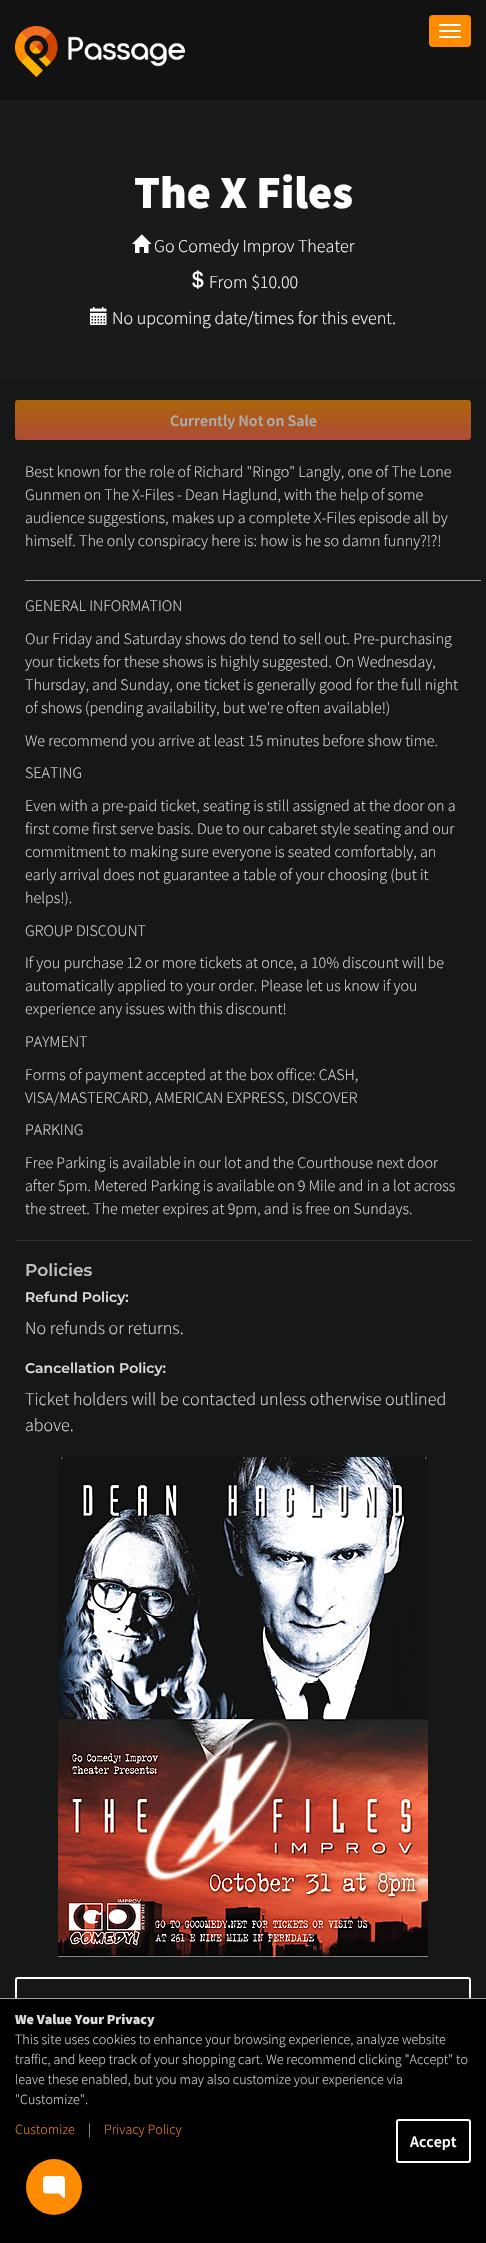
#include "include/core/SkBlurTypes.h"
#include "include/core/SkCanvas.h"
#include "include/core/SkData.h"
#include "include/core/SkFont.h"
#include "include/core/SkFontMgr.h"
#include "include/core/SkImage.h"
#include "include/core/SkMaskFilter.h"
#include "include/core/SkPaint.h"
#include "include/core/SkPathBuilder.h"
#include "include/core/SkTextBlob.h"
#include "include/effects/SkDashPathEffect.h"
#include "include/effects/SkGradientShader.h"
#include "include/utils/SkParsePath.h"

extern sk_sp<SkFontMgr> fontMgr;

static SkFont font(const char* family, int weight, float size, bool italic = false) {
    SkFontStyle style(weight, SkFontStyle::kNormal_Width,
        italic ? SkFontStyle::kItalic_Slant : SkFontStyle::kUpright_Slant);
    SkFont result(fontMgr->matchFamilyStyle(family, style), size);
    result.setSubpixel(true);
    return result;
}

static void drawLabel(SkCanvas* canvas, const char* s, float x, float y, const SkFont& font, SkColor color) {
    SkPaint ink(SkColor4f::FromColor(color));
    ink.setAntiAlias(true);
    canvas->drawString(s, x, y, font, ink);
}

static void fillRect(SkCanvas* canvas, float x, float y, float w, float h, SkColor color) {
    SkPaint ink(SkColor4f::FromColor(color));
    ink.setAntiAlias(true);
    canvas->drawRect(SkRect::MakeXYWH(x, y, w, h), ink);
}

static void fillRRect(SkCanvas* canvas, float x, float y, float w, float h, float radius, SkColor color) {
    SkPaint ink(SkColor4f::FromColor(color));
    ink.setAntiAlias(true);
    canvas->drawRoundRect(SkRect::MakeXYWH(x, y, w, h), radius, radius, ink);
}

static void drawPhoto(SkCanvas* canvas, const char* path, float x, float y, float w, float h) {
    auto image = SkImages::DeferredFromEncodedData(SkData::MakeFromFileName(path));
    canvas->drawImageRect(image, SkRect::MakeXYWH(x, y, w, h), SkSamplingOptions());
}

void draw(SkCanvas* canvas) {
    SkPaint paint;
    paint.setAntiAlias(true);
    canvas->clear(0xFF181A1B);
    fillRect(canvas, 0, 0, 486, 100, 0xFF121212);
    drawPhoto(canvas, "assets/img1.png", 15, 26, 170, 51);
    fillRRect(canvas, 429, 15, 42, 32, 4, 0xFFFE8B00);
    fillRRect(canvas, 439, 24, 22, 2, 1, 0xFFFFFFFF);
    fillRRect(canvas, 439, 30, 22, 2, 1, 0xFFFFFFFF);
    fillRRect(canvas, 439, 36, 22, 2, 1, 0xFFFFFFFF);
    SkFont font1 = font("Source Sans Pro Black", 900, 46);
    drawLabel(canvas, "The X Files", 134, 208, font1, 0xFFFFFFFF);
    drawPhoto(canvas, "assets/img2.png", 132, 234, 20, 19);
    SkFont font2 = font("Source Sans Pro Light", 300, 18);
    drawLabel(canvas, "Go Comedy Improv Theater", 154, 252, font2, 0xFFFFFFFF);
    drawPhoto(canvas, "assets/img3.png", 192, 270, 12, 19);
    drawLabel(canvas, "From $10.00", 209, 288, font2, 0xFFFFFFFF);
    drawPhoto(canvas, "assets/img4.png", 90, 307, 17, 18);
    drawLabel(canvas, "No upcoming date/times for this event.", 112, 324, font2, 0xFFFFFFFF);
    fillRect(canvas, 0, 380, 486, 1618, 0xFF161717);
    {
        const SkColor colors[] = {0xFFAD6508, 0xFFAD4C38};
        const float stops[] = {0, 1};
        const SkPoint ends[] = {{243, 400}, {243, 440}};
        paint.setShader(SkGradientShader::MakeLinear(ends, colors, stops, 2, SkTileMode::kClamp));
        paint.setAlpha(255);
    }
    canvas->drawRoundRect(SkRect::MakeXYWH(15, 400, 456, 40), 3, 3, paint);
    SkFont font3 = font("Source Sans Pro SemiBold", 600, 16);
    drawLabel(canvas, "Currently Not on Sale", 170, 426, font3, 0xFFADAEAE);
    SkFont font4 = font("Source Sans Pro Light", 300, 16);
    drawLabel(canvas, "Best known for the role of Richard \"Ringo\" Langly, one of The Lone", 25, 477, font4, 0xFFDDDDDD);
    drawLabel(canvas, "Gunmen on The X-Files - Dean Haglund, with the help of some", 25, 500, font4, 0xFFDDDDDD);
    drawLabel(canvas, "audience suggestions, makes up a complete X-Files episode all by", 25, 523, font4, 0xFFDDDDDD);
    drawLabel(canvas, "himself. The only conspiracy here is: how is he so damn funny?!?!", 25, 546, font4, 0xFFDDDDDD);
    drawLabel(canvas, "_________________________________________________________", 25, 579, font4, 0xFFDDDDDD);
    drawLabel(canvas, "GENERAL INFORMATION", 25, 611, font4, 0xFFDDDDDD);
    drawLabel(canvas, "Our Friday and Saturday shows do tend to sell out. Pre-purchasing", 25, 644, font4, 0xFFDDDDDD);
    drawLabel(canvas, "your tickets for these shows is highly suggested. On Wednesday,", 25, 667, font4, 0xFFDDDDDD);
    drawLabel(canvas, "Thursday, and Sunday, one ticket is generally good for the full night", 25, 690, font4, 0xFFDDDDDD);
    drawLabel(canvas, "of shows (pending availability, but we're often available!)", 25, 713, font4, 0xFFDDDDDD);
    drawLabel(canvas, "We recommend you arrive at least 15 minutes before show time.", 25, 746, font4, 0xFFDDDDDD);
    drawLabel(canvas, "SEATING", 25, 778, font4, 0xFFDDDDDD);
    drawLabel(canvas, "Even with a pre-paid ticket, seating is still assigned at the door on a", 25, 811, font4, 0xFFDDDDDD);
    drawLabel(canvas, "first come first serve basis. Due to our cabaret style seating and our", 25, 834, font4, 0xFFDDDDDD);
    drawLabel(canvas, "commitment to making sure everyone is seated comfortably, an", 25, 857, font4, 0xFFDDDDDD);
    drawLabel(canvas, "early arrival does not guarantee a table of your choosing (but it", 25, 880, font4, 0xFFDDDDDD);
    drawLabel(canvas, "helps!).", 25, 903, font4, 0xFFDDDDDD);
    drawLabel(canvas, "GROUP DISCOUNT", 25, 936, font4, 0xFFDDDDDD);
    drawLabel(canvas, "If you purchase 12 or more tickets at once, a 10% discount will be", 25, 968, font4, 0xFFDDDDDD);
    drawLabel(canvas, "automatically applied to your order. Please let us know if you", 25, 991, font4, 0xFFDDDDDD);
    drawLabel(canvas, "experience any issues with this discount!", 25, 1014, font4, 0xFFDDDDDD);
    drawLabel(canvas, "PAYMENT", 25, 1047, font4, 0xFFDDDDDD);
    drawLabel(canvas, "Forms of payment accepted at the box office: CASH,", 25, 1080, font4, 0xFFDDDDDD);
    drawLabel(canvas, "VISA/MASTERCARD, AMERICAN EXPRESS, DISCOVER", 25, 1103, font4, 0xFFDDDDDD);
    drawLabel(canvas, "PARKING", 25, 1135, font4, 0xFFDDDDDD);
    drawLabel(canvas, "Free Parking is available in our lot and the Courthouse next door", 25, 1168, font4, 0xFFDDDDDD);
    drawLabel(canvas, "after 5pm. Metered Parking is available on 9 Mile and in a lot across", 25, 1191, font4, 0xFFDDDDDD);
    drawLabel(canvas, "the street. The meter expires at 9pm, and is free on Sundays.", 25, 1214, font4, 0xFFDDDDDD);
    fillRect(canvas, 15, 1240, 456, 1, 0xFF333333);
    SkFont font5 = font("Montserrat", 600, 17);
    drawLabel(canvas, "Policies", 25, 1276, font5, 0xFFBFBFBF);
    SkFont font6 = font("Montserrat", 600, 14);
    drawLabel(canvas, "Refund Policy:", 25, 1302, font6, 0xFFDDDDDD);
    drawLabel(canvas, "No refunds or returns.", 25, 1334, font2, 0xFFDDDDDD);
    drawLabel(canvas, "Cancellation Policy:", 25, 1373, font6, 0xFFDDDDDD);
    drawLabel(canvas, "Ticket holders will be contacted unless otherwise outlined", 25, 1405, font2, 0xFFDDDDDD);
    drawLabel(canvas, "above.", 25, 1431, font2, 0xFFDDDDDD);
    drawPhoto(canvas, "assets/img5.png", 58, 1457, 370, 500);
    paint.setStroke(true);
    paint.setStrokeWidth(2);
    paint.setShader(nullptr);
    paint.setColor(0xFFFFFFFF);
    canvas->drawRoundRect(SkRect::MakeXYWH(16, 1978, 454, 42), 2, 2, paint);
    paint.setStroke(false);
    paint.setColor(0x33000000);
    paint.setMaskFilter(SkMaskFilter::MakeBlur(kNormal_SkBlurStyle, 4));
    canvas->drawRect(SkRect::MakeXYWH(0, 1998, 486, 245), paint);
    paint.setMaskFilter(nullptr);
    fillRect(canvas, 0, 1999, 486, 244, 0xFF000000);
    fillRect(canvas, 0, 1998, 486, 1, 0xFF9CA3AF);
    SkFont font7 = font("Source Sans Pro Black", 900, 14);
    drawLabel(canvas, "We Value Your Privacy", 15, 2024, font7, 0xFFDDDDDD);
    SkFont font8 = font("Source Sans Pro Light", 300, 14);
    drawLabel(canvas, "This site uses cookies to enhance your browsing experience, analyze website", 15, 2044, font8, 0xFFDDDDDD);
    drawLabel(canvas, "traffic, and keep track of your shopping cart. We recommend clicking \"Accept\" to", 15, 2064, font8, 0xFFDDDDDD);
    drawLabel(canvas, "leave these enabled, but you may also customize your experience via", 15, 2084, font8, 0xFFDDDDDD);
    drawLabel(canvas, "\"Customize\".", 15, 2104, font8, 0xFFDDDDDD);
    drawLabel(canvas, "Customize", 15, 2134, font8, 0xFFFE8B00);
    drawLabel(canvas, "|", 88, 2134, font8, 0xFFDDDDDD);
    drawLabel(canvas, "Privacy Policy", 104, 2134, font8, 0xFFFE8B00);
    paint.setStroke(true);
    paint.setColor(0xFFFFFFFF);
    canvas->drawRoundRect(SkRect::MakeXYWH(397, 2120, 73, 42), 2, 2, paint);
    drawLabel(canvas, "Accept", 410, 2147, font3, 0xFFFFFFFF);
    drawPhoto(canvas, "assets/img6.png", 26, 2159, 56, 56);
}
